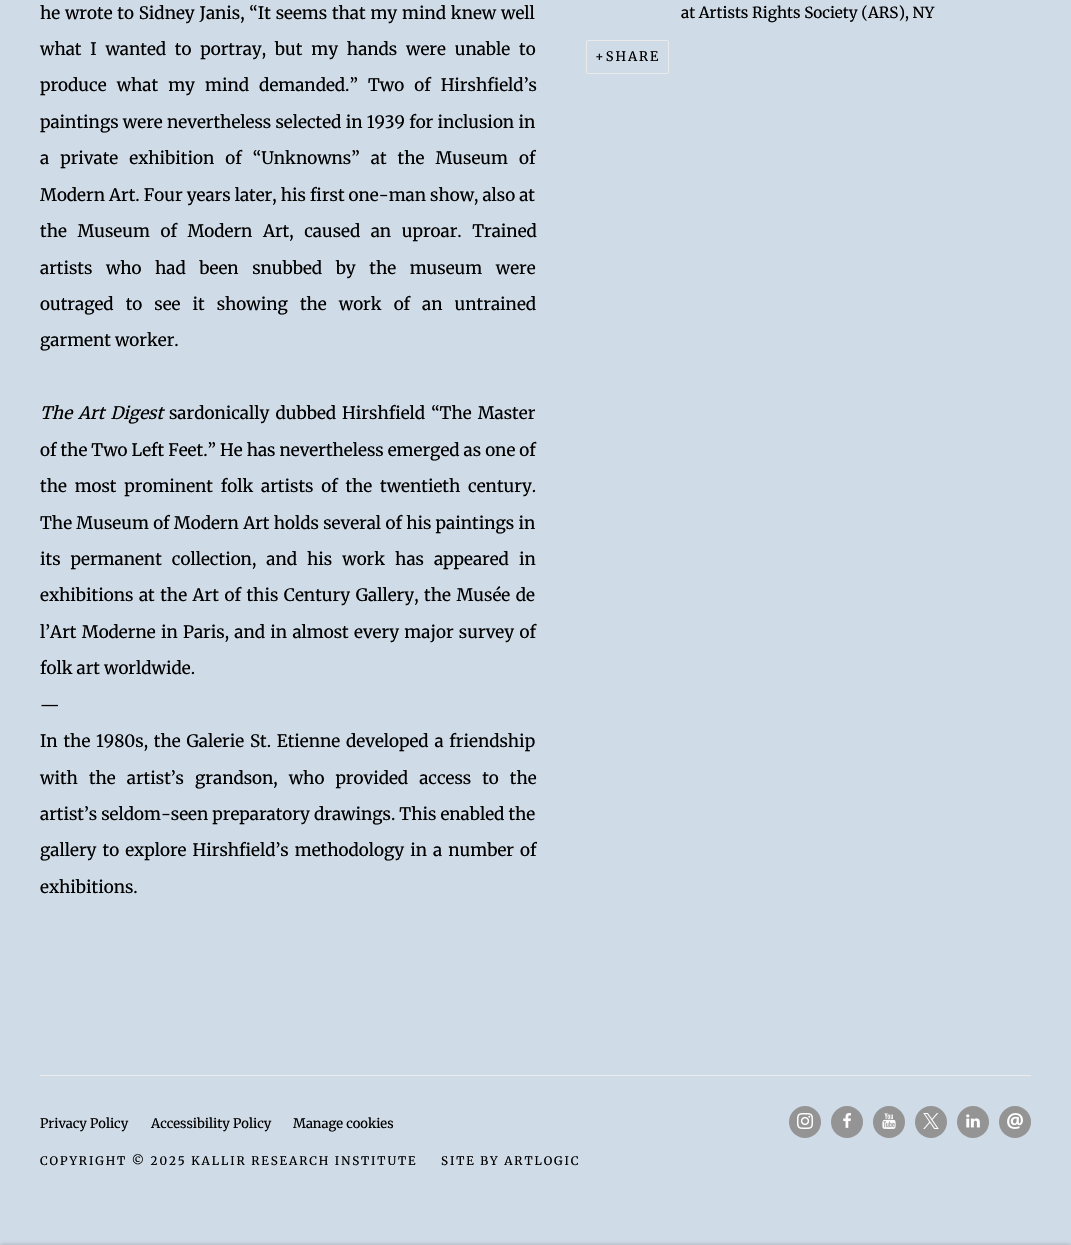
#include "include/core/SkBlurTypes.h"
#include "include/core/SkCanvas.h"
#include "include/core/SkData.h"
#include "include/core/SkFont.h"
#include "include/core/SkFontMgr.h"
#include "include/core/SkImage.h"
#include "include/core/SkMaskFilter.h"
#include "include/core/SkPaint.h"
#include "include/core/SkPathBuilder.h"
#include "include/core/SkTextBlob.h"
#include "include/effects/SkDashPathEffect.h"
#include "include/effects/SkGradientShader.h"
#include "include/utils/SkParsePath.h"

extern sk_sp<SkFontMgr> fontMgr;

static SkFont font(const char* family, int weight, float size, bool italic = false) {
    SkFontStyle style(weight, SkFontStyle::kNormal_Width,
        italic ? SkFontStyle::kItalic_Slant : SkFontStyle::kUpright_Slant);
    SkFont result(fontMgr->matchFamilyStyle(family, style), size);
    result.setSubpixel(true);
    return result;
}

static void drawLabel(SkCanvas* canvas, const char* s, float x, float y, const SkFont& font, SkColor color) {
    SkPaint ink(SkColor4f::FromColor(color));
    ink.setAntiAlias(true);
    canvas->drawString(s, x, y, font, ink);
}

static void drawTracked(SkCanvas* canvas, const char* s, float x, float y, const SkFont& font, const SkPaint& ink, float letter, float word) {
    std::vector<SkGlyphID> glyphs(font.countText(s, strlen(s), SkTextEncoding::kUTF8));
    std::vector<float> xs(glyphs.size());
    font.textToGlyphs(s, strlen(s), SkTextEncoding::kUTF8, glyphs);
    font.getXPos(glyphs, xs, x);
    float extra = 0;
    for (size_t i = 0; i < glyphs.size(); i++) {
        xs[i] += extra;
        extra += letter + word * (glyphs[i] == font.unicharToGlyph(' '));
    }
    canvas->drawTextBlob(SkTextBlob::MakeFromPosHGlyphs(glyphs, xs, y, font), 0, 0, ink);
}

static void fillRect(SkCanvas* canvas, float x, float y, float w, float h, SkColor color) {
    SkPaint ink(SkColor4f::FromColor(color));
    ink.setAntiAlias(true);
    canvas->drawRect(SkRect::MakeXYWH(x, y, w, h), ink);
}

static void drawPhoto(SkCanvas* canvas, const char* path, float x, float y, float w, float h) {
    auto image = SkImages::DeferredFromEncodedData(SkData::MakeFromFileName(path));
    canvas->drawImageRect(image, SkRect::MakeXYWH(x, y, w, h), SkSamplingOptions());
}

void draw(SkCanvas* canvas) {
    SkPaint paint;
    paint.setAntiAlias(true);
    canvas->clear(0xFFCFDBE7);
    SkFont font1 = font("Merriweather", 400, 17.05f);
    paint.setColor(0xFF000000);
    drawTracked(canvas, "he wrote to Sidney Janis, “It seems that my mind knew well", 40, 19, font1, paint, 0, 0.75f);
    drawTracked(canvas, "what I wanted to portray, but my hands were unable to", 40, 55, font1, paint, 0, 4.75f);
    drawTracked(canvas, "produce what my mind demanded.” Two of Hirshfield’s", 40, 91, font1, paint, 0, 6);
    drawTracked(canvas, "paintings were nevertheless selected in 1939 for inclusion in", 40, 128, font1, paint, 0, 0.25f);
    drawTracked(canvas, "a private exhibition of “Unknowns” at the Museum of", 40, 164, font1, paint, 0, 7);
    drawLabel(canvas, "Modern Art. Four years later, his first one-man show, also at", 40, 201, font1, 0xFF000000);
    drawTracked(canvas, "the Museum of Modern Art, caused an uproar. Trained", 40, 237, font1, paint, 0, 6.5f);
    drawTracked(canvas, "artists who had been snubbed by the museum were", 40, 274, font1, paint, 0, 9.5f);
    drawTracked(canvas, "outraged to see it showing the work of an untrained", 40, 310, font1, paint, 0, 8);
    drawLabel(canvas, "garment worker.", 40, 346, font1, 0xFF000000);
    SkFont font2 = font("Merriweather", 400, 17.05f, true);
    drawTracked(canvas, "The Art Digest", 40, 419, font2, paint, 0, 2);
    drawTracked(canvas, "sardonically dubbed Hirshfield “The Master", 169, 419, font1, paint, 0, 2);
    drawLabel(canvas, "of the Two Left Feet.” He has nevertheless emerged as one of", 40, 456, font1, 0xFF000000);
    drawTracked(canvas, "the most prominent folk artists of the twentieth century.", 40, 492, font1, paint, 0, 3.75f);
    drawTracked(canvas, "The Museum of Modern Art holds several of his paintings in", 40, 529, font1, paint, 0, 0.25f);
    drawTracked(canvas, "its permanent collection, and his work has appeared in", 40, 565, font1, paint, 0, 6);
    drawTracked(canvas, "exhibitions at the Art of this Century Gallery, the Musée de", 40, 601, font1, paint, 0, 1.5f);
    drawTracked(canvas, "l’Art Moderne in Paris, and in almost every major survey of", 40, 638, font1, paint, 0, 1.25f);
    drawLabel(canvas, "folk art worldwide.", 40, 674, font1, 0xFF000000);
    drawLabel(canvas, "—", 40, 711, font1, 0xFF000000);
    drawTracked(canvas, "In the 1980s, the Galerie St. Etienne developed a friendship", 40, 747, font1, paint, 0, 1.75f);
    drawTracked(canvas, "with the artist’s grandson, who provided access to the", 40, 784, font1, paint, 0, 7);
    drawLabel(canvas, "artist’s seldom-seen preparatory drawings. This enabled the", 40, 820, font1, 0xFF000000);
    drawTracked(canvas, "gallery to explore Hirshfield’s methodology in a number of", 40, 856, font1, paint, 0, 2);
    drawLabel(canvas, "exhibitions.", 40, 893, font1, 0xFF000000);
    SkFont font3 = font("Merriweather", 400, 15.3f);
    drawLabel(canvas, "at Artists Rights Society (ARS), NY", 681, 18, font3, 0xFF000000);
    paint.setStroke(true);
    paint.setStrokeWidth(1);
    paint.setColor(0xFFEBEBEB);
    canvas->drawRoundRect(SkRect::MakeXYWH(586.5f, 40.5f, 82, 33), 1.5f, 1.5f, paint);
    SkFont font4 = font("Merriweather", 400, 13);
    paint.setStroke(false);
    paint.setColor(0xFF000000);
    drawTracked(canvas, "+SHARE", 595, 61, font4, paint, 2, 0);
    fillRect(canvas, 40, 1075, 991, 1, 0xFFEBEBEB);
    drawLabel(canvas, "Privacy Policy", 40, 1128, font4, 0xFF000000);
    drawLabel(canvas, "Accessibility Policy", 151, 1128, font4, 0xFF000000);
    drawLabel(canvas, "Manage cookies", 293, 1128, font4, 0xFF000000);
    SkFont font5 = font("Merriweather", 400, 11.75f);
    drawTracked(canvas, "COPYRIGHT © 2025 KALLIR RESEARCH INSTITUTE", 40, 1165, font5, paint, 1.9f, 0);
    drawTracked(canvas, "SITE BY ARTLOGIC", 441, 1165, font5, paint, 1.9f, 0);
    paint.setColor(0xFF949494);
    canvas->drawCircle(805, 1122, 16, paint);
    drawPhoto(canvas, "assets/img1.png", 797, 1113, 16, 16);
    canvas->drawCircle(847, 1122, 16, paint);
    drawPhoto(canvas, "assets/img2.png", 843, 1113, 8, 15);
    canvas->drawCircle(889, 1122, 16, paint);
    drawPhoto(canvas, "assets/img3.png", 882, 1113, 14, 16);
    canvas->drawCircle(931, 1122, 16, paint);
    drawPhoto(canvas, "assets/img4.png", 923, 1113, 16, 16);
    canvas->drawCircle(973, 1122, 16, paint);
    drawPhoto(canvas, "assets/img5.png", 966, 1114, 14, 14);
    canvas->drawCircle(1015, 1122, 16, paint);
    drawPhoto(canvas, "assets/img6.png", 1007, 1113, 16, 16);
    paint.setColor(0x3B000000);
    paint.setMaskFilter(SkMaskFilter::MakeBlur(kNormal_SkBlurStyle, 2.5f));
    canvas->drawRect(SkRect::MakeXYWH(0, 1245, 1071, 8), paint);
    paint.setMaskFilter(nullptr);
}
